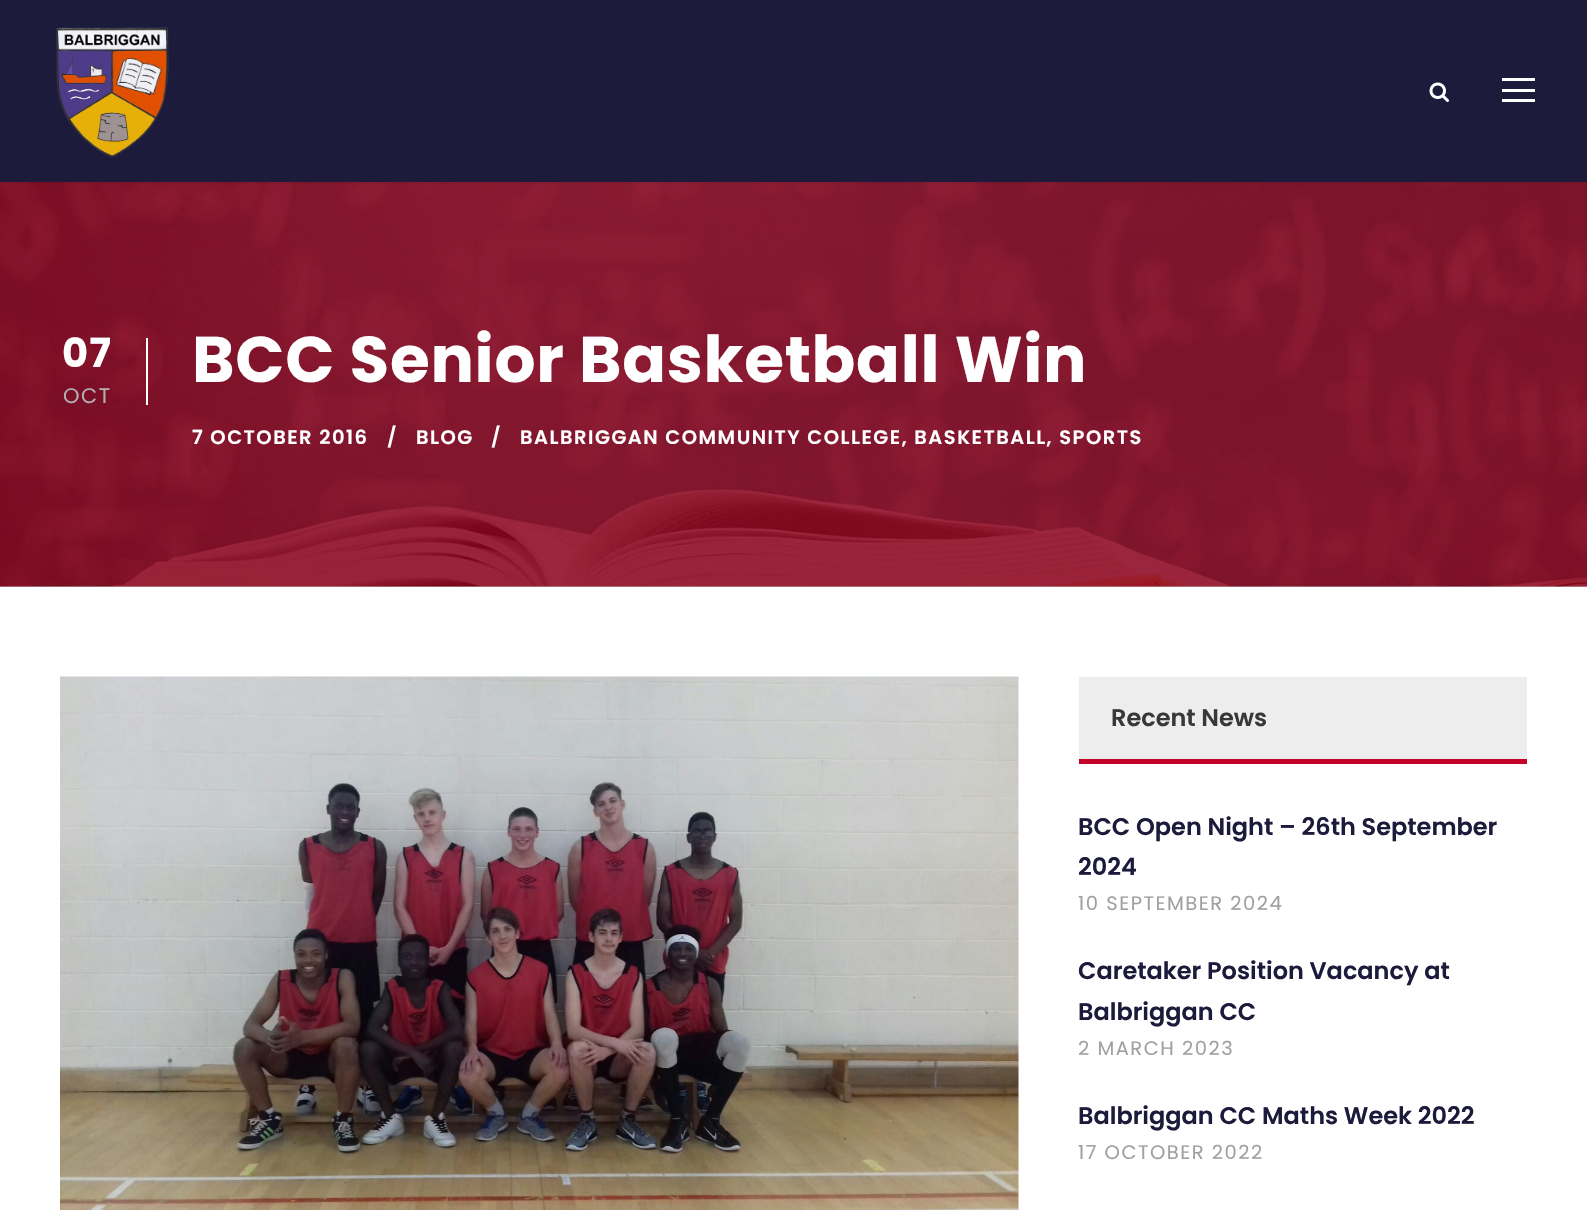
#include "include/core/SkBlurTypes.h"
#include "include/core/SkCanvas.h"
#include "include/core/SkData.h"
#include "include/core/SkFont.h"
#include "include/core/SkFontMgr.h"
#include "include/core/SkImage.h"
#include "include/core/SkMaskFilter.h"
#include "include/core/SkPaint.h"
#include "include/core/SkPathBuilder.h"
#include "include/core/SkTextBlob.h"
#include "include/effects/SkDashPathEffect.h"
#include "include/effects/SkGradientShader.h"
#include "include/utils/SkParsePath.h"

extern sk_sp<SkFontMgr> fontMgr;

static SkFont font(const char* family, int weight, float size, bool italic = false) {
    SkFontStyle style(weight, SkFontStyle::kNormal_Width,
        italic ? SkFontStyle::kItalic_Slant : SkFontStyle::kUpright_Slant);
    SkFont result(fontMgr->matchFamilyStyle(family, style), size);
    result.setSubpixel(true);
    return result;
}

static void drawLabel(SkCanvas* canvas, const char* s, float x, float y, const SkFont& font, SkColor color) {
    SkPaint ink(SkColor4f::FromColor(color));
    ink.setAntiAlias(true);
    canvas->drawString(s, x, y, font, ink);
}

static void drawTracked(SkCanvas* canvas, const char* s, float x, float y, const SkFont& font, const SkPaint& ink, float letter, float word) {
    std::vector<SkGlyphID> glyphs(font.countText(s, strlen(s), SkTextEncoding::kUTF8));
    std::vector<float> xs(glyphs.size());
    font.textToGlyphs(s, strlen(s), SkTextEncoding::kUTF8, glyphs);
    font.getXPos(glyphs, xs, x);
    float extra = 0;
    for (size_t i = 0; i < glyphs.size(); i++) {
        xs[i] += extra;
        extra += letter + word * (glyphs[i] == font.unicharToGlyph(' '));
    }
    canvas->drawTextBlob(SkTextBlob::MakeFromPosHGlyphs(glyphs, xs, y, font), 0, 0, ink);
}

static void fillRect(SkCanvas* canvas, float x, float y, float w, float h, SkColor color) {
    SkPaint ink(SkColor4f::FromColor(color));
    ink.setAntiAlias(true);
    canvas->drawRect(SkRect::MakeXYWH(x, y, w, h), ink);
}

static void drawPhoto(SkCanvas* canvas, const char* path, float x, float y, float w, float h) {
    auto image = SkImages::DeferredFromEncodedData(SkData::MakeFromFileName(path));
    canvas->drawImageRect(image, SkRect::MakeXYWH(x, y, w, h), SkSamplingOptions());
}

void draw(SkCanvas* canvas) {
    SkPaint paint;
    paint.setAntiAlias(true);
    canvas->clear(0xFFFFFFFF);
    fillRect(canvas, 0, 586, 1587, 1, 0xFFBFBFBF);
    drawPhoto(canvas, "assets/img3.png", 0, 182, 1587, 405);
    paint.setColor(0x1A000000);
    paint.setMaskFilter(SkMaskFilter::MakeBlur(kNormal_SkBlurStyle, 1.5f));
    canvas->drawRect(SkRect::MakeXYWH(0, 2, 1587, 181), paint);
    paint.setMaskFilter(nullptr);
    fillRect(canvas, 0, 0, 1587, 182, 0xFF1C1B3B);
    drawPhoto(canvas, "assets/img1.png", 56, 27, 113, 131);
    drawPhoto(canvas, "assets/img2.png", 1429, 82, 20, 20);
    fillRect(canvas, 1502, 78, 33, 3, 0xFFFFFFFF);
    fillRect(canvas, 1502, 89, 33, 3, 0xFFFFFFFF);
    fillRect(canvas, 1502, 99, 33, 3, 0xFFFFFFFF);
    fillRect(canvas, 146, 338, 2, 67, 0xFFFFFFFF);
    SkFont font1 = font("Poppins", 700, 40);
    paint.setColor(0xFFFFFFFF);
    drawTracked(canvas, "07", 62, 367, font1, paint, 1.5f, 0);
    SkFont font2 = font("Poppins", 400, 21);
    paint.setColor(0xFFB1B1B1);
    drawTracked(canvas, "OCT", 63, 403, font2, paint, 1.5f, 0);
    SkFont font3 = font("Poppins", 700, 64.5f);
    paint.setColor(0xFFFFFFFF);
    drawTracked(canvas, "BCC Senior Basketball Win", 192, 382, font3, paint, 0.75f, 0);
    SkFont font4 = font("Poppins", 600, 19.5f);
    drawTracked(canvas, "7 OCTOBER 2016", 192, 444, font4, paint, 1.5f, 0);
    drawTracked(canvas, "/", 387, 444, font4, paint, 1.5f, 0);
    drawTracked(canvas, "BLOG", 416, 444, font4, paint, 1.5f, 0);
    drawTracked(canvas, "/", 491, 444, font4, paint, 1.5f, 0);
    drawTracked(canvas, "BALBRIGGAN COMMUNITY COLLEGE, BASKETBALL, SPORTS", 520, 444, font4, paint, 1.5f, 0);
    drawPhoto(canvas, "assets/img4.png", 60, 676, 959, 534);
    fillRect(canvas, 1079, 677, 448, 82, 0xFFEDEDED);
    fillRect(canvas, 1079, 759, 448, 5, 0xFFC50227);
    SkFont font5 = font("Poppins", 600, 24);
    drawLabel(canvas, "Recent News", 1111, 726, font5, 0xFF383838);
    drawLabel(canvas, "BCC Open Night – 26th September", 1078, 835, font5, 0xFF1C1B3B);
    drawLabel(canvas, "2024", 1078, 875, font5, 0xFF1C1B3B);
    SkFont font6 = font("Poppins", 400, 19.5f);
    paint.setColor(0xFFA0A0A0);
    drawTracked(canvas, "10 SEPTEMBER 2024", 1078, 910, font6, paint, 1.5f, 0);
    drawLabel(canvas, "Caretaker Position Vacancy at", 1078, 979, font5, 0xFF1C1B3B);
    drawLabel(canvas, "Balbriggan CC", 1078, 1020, font5, 0xFF1C1B3B);
    drawTracked(canvas, "2 MARCH 2023", 1078, 1055, font6, paint, 1.5f, 0);
    drawLabel(canvas, "Balbriggan CC Maths Week 2022", 1078, 1124, font5, 0xFF1C1B3B);
    drawTracked(canvas, "17 OCTOBER 2022", 1078, 1159, font6, paint, 1.5f, 0);
}
